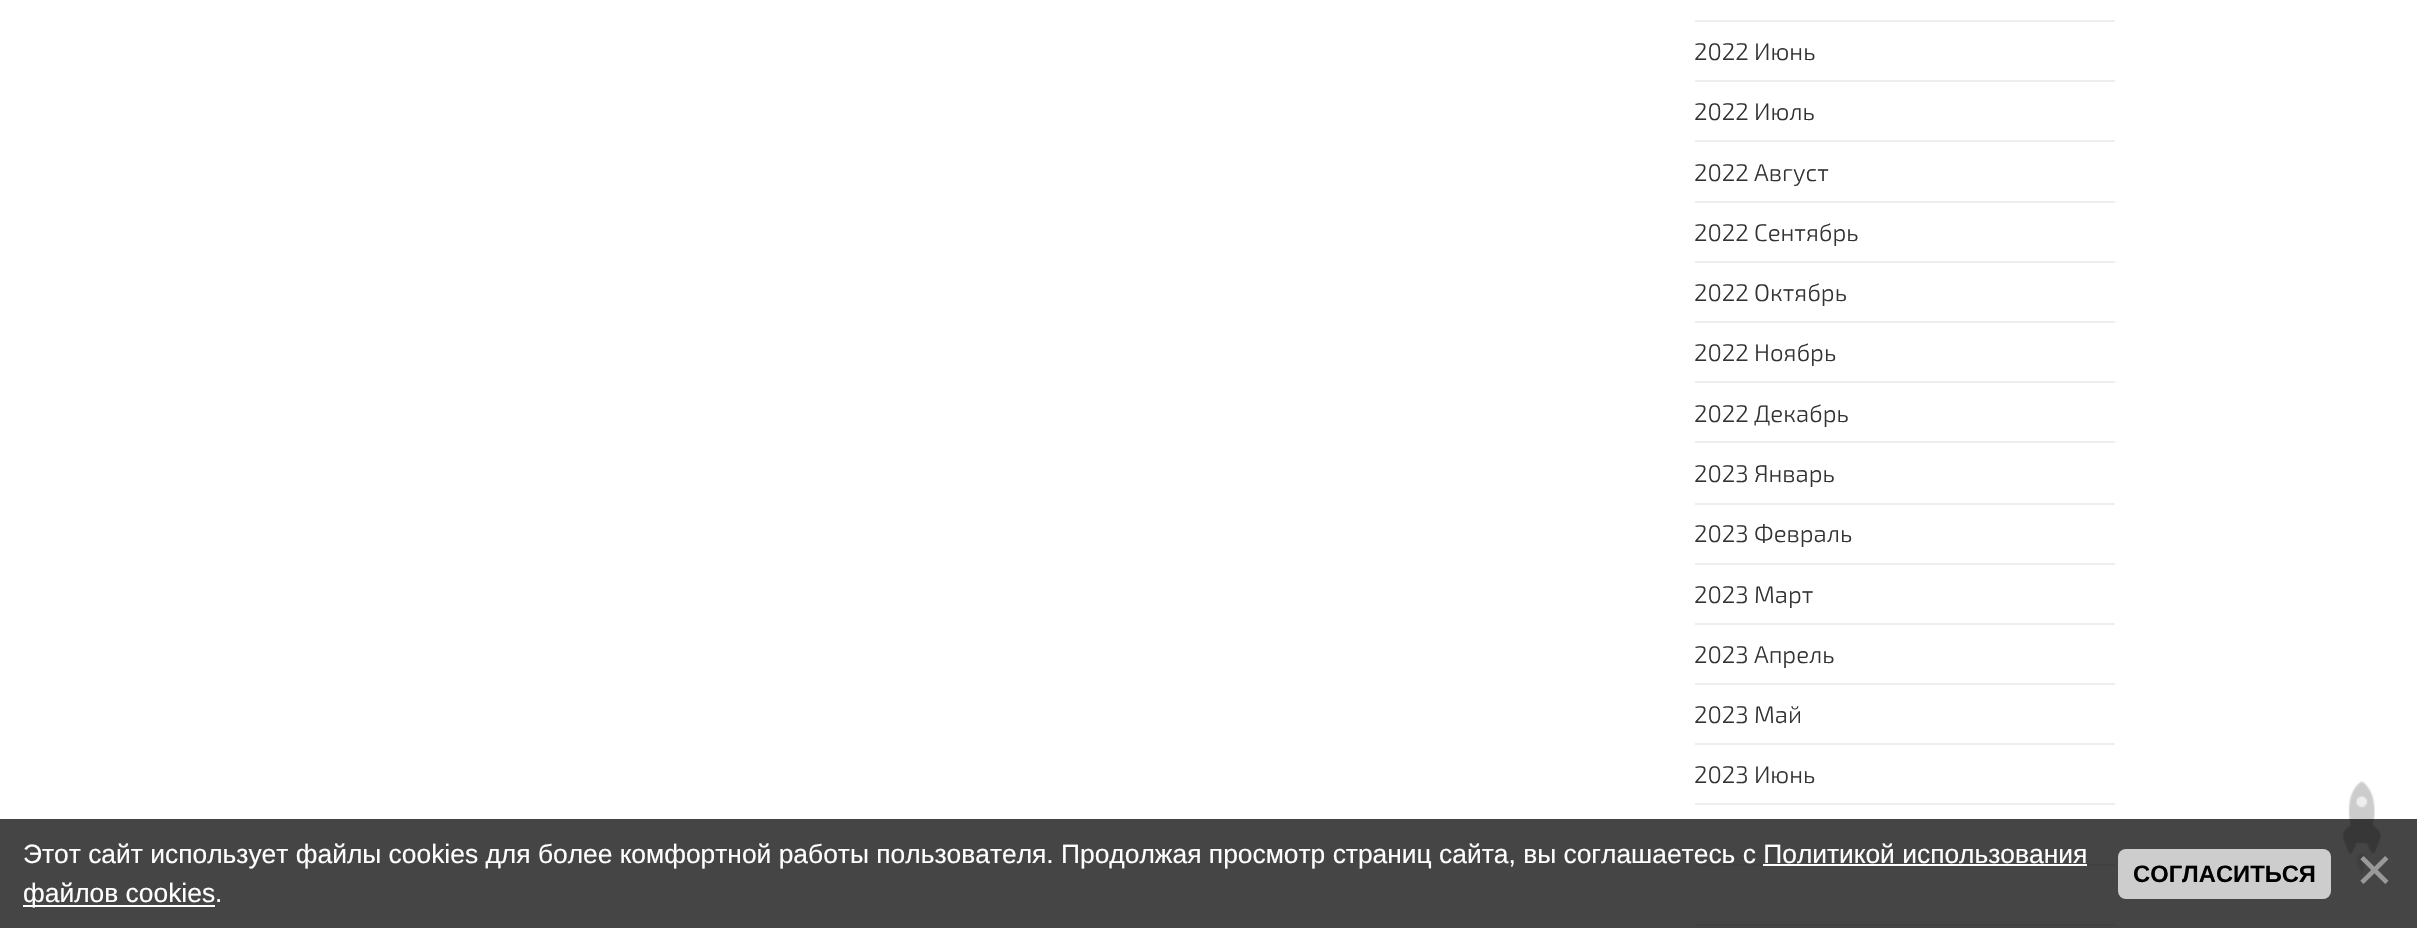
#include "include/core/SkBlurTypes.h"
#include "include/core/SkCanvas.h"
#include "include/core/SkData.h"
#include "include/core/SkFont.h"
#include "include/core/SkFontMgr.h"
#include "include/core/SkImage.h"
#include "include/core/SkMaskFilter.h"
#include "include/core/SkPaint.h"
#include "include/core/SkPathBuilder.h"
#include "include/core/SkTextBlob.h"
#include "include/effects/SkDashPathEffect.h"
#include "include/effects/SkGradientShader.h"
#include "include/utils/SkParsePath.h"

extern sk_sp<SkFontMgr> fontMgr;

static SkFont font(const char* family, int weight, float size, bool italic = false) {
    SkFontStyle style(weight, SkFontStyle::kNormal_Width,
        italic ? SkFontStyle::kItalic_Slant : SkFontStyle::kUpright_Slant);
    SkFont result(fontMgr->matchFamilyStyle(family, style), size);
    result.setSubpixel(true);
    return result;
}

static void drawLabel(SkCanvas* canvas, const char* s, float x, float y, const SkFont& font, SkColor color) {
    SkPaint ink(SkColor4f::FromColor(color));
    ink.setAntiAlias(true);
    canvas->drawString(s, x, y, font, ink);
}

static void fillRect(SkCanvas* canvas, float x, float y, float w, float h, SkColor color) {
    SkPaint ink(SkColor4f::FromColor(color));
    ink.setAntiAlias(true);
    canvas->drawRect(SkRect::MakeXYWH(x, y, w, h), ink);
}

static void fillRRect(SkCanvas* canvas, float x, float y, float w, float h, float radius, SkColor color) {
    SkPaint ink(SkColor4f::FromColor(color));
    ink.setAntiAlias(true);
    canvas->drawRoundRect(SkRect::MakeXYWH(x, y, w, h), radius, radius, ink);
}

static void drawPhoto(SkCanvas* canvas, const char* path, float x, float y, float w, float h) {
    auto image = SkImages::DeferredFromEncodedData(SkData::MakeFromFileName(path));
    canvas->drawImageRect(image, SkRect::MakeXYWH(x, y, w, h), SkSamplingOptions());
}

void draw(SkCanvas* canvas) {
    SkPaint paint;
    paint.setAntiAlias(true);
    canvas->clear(0xFFFFFFFF);
    fillRect(canvas, 1695, 20, 420, 2, 0xFFEEEEEE);
    fillRect(canvas, 1695, 80, 420, 2, 0xFFEEEEEE);
    SkFont font1 = font("Exo 2", 300, 24);
    drawLabel(canvas, "2022 Июнь", 1694, 60, font1, 0xFF333333);
    fillRect(canvas, 1695, 140, 420, 2, 0xFFEEEEEE);
    drawLabel(canvas, "2022 Июль", 1694, 120, font1, 0xFF333333);
    fillRect(canvas, 1695, 201, 420, 2, 0xFFEEEEEE);
    drawLabel(canvas, "2022 Август", 1694, 181, font1, 0xFF333333);
    fillRect(canvas, 1695, 261, 420, 2, 0xFFEEEEEE);
    drawLabel(canvas, "2022 Сентябрь", 1694, 241, font1, 0xFF333333);
    fillRect(canvas, 1695, 321, 420, 2, 0xFFEEEEEE);
    drawLabel(canvas, "2022 Октябрь", 1694, 301, font1, 0xFF333333);
    fillRect(canvas, 1695, 381, 420, 2, 0xFFEEEEEE);
    drawLabel(canvas, "2022 Ноябрь", 1694, 361, font1, 0xFF333333);
    fillRect(canvas, 1695, 441, 420, 2, 0xFFEEEEEE);
    drawLabel(canvas, "2022 Декабрь", 1694, 422, font1, 0xFF333333);
    fillRect(canvas, 1695, 503, 420, 2, 0xFFEEEEEE);
    drawLabel(canvas, "2023 Январь", 1694, 482, font1, 0xFF333333);
    fillRect(canvas, 1695, 563, 420, 2, 0xFFEEEEEE);
    drawLabel(canvas, "2023 Февраль", 1694, 542, font1, 0xFF333333);
    fillRect(canvas, 1695, 623, 420, 2, 0xFFEEEEEE);
    drawLabel(canvas, "2023 Март", 1694, 603, font1, 0xFF333333);
    fillRect(canvas, 1695, 683, 420, 2, 0xFFEEEEEE);
    drawLabel(canvas, "2023 Апрель", 1694, 663, font1, 0xFF333333);
    fillRect(canvas, 1695, 743, 420, 2, 0xFFEEEEEE);
    drawLabel(canvas, "2023 Май", 1694, 723, font1, 0xFF333333);
    fillRect(canvas, 1695, 803, 420, 2, 0xFFEEEEEE);
    drawLabel(canvas, "2023 Июнь", 1694, 783, font1, 0xFF333333);
    fillRect(canvas, 1695, 864, 420, 2, 0xFFEEEEEE);
    fillRect(canvas, 1695, 924, 420, 2, 0xFFEEEEEE);
    drawPhoto(canvas, "assets/img1.png", 2342, 781, 39, 73);
    drawPhoto(canvas, "assets/img2.png", 2356, 853, 12, 21);
    fillRect(canvas, 0, 819, 2417, 109, 0xBA000000);
    SkFont font2 = font("Liberation Sans", 400, 26.4f);
    drawLabel(canvas, "Этот сайт использует файлы cookies для более комфортной работы пользователя. Продолжая просмотр страниц сайта, вы соглашаетесь с Политикой использования", 23, 863, font2, 0xFFFFFFFF);
    fillRect(canvas, 23, 905, 192, 2, 0xFFFFFFFF);
    drawLabel(canvas, "файлов cookies.", 23, 902, font2, 0xFFFFFFFF);
    fillRect(canvas, 1763, 864, 324, 2, 0xFFFFFFFF);
    fillRRect(canvas, 2118, 849, 213, 50, 8, 0xFFCDCDCD);
    SkFont font3 = font("Liberation Sans", 700, 23.75f);
    drawLabel(canvas, "СОГЛАСИТЬСЯ", 2133, 882, font3, 0xFF000000);
    SkFont font4 = font("Liberation Sans", 400, 63);
    drawLabel(canvas, "×", 2356, 891, font4, 0xFF999999);
}
